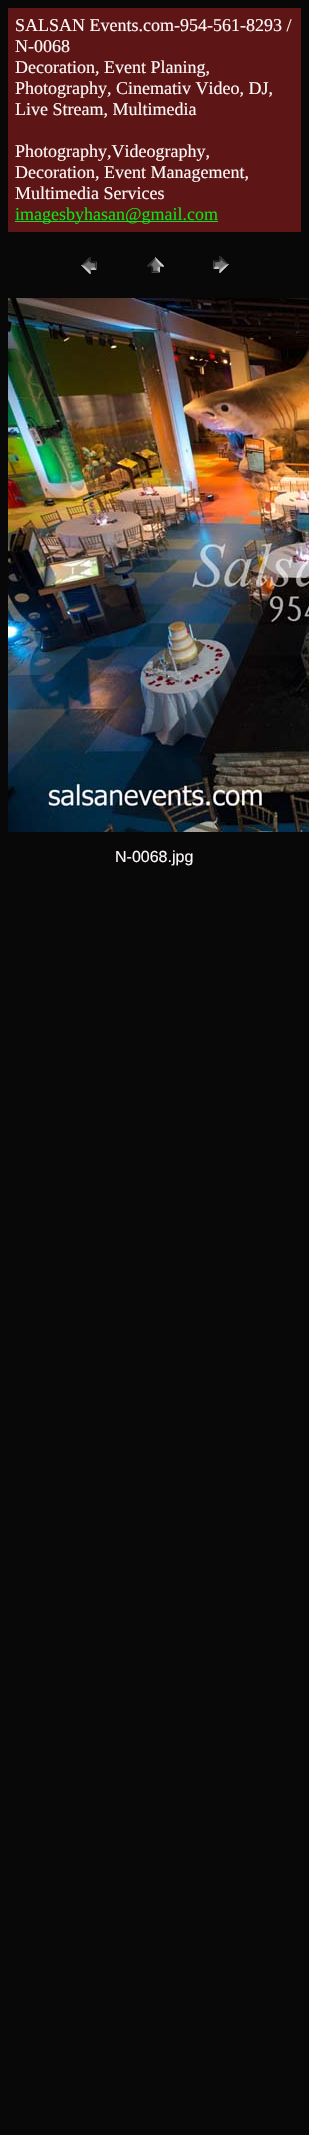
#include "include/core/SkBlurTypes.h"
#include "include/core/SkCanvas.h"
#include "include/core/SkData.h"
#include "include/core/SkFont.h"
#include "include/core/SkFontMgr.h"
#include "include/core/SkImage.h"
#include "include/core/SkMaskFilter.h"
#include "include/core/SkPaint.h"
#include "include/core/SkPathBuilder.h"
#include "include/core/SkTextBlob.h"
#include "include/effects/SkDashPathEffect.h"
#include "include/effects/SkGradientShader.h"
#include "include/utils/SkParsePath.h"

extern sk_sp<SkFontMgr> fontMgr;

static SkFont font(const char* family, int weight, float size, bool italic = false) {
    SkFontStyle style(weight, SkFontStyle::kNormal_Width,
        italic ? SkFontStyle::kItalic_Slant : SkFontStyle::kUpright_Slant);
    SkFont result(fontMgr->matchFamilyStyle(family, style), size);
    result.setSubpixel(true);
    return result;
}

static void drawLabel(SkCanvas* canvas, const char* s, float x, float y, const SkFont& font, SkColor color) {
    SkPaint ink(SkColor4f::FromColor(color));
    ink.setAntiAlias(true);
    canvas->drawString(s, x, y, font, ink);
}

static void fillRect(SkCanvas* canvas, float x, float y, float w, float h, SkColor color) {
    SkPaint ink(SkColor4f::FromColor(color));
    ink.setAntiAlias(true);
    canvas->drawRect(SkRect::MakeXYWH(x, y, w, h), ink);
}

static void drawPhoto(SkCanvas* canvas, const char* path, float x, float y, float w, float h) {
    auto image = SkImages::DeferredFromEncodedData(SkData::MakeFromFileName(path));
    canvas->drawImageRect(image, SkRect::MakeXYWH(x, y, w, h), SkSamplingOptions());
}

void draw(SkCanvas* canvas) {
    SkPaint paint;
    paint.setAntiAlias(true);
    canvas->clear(0xFF080808);
    fillRect(canvas, 8, 8, 293, 224, 0xFF5E1515);
    SkFont font1 = font("Liberation Serif", 400, 18);
    drawLabel(canvas, "SALSAN Events.com-954-561-8293 /", 15, 31, font1, 0xFFFEF8F8);
    drawLabel(canvas, "N-0068", 15, 52, font1, 0xFFFEF8F8);
    drawLabel(canvas, "Decoration, Event Planing,", 15, 73, font1, 0xFFFEF8F8);
    drawLabel(canvas, "Photography, Cinemativ Video, DJ,", 15, 94, font1, 0xFFFEF8F8);
    drawLabel(canvas, "Live Stream, Multimedia", 15, 115, font1, 0xFFFEF8F8);
    drawLabel(canvas, "Photography,Videography,", 15, 157, font1, 0xFFFEF8F8);
    drawLabel(canvas, "Decoration, Event Management,", 15, 178, font1, 0xFFFEF8F8);
    drawLabel(canvas, "Multimedia Services", 15, 199, font1, 0xFFFEF8F8);
    fillRect(canvas, 15, 221, 203, 1, 0xFF0AE419);
    drawLabel(canvas, "imagesbyhasan@gmail.com", 15, 220, font1, 0xFF0AE419);
    drawPhoto(canvas, "assets/img1.png", 81, 257, 16, 17);
    drawPhoto(canvas, "assets/img2.png", 147, 257, 17, 16);
    drawPhoto(canvas, "assets/img3.png", 213, 256, 16, 17);
    drawPhoto(canvas, "assets/img4.png", 8, 298, 301, 534);
    SkFont font2 = font("Liberation Sans", 400, 16);
    drawLabel(canvas, "N-0068.jpg", 115, 862, font2, 0xFFFEF8F8);
}
